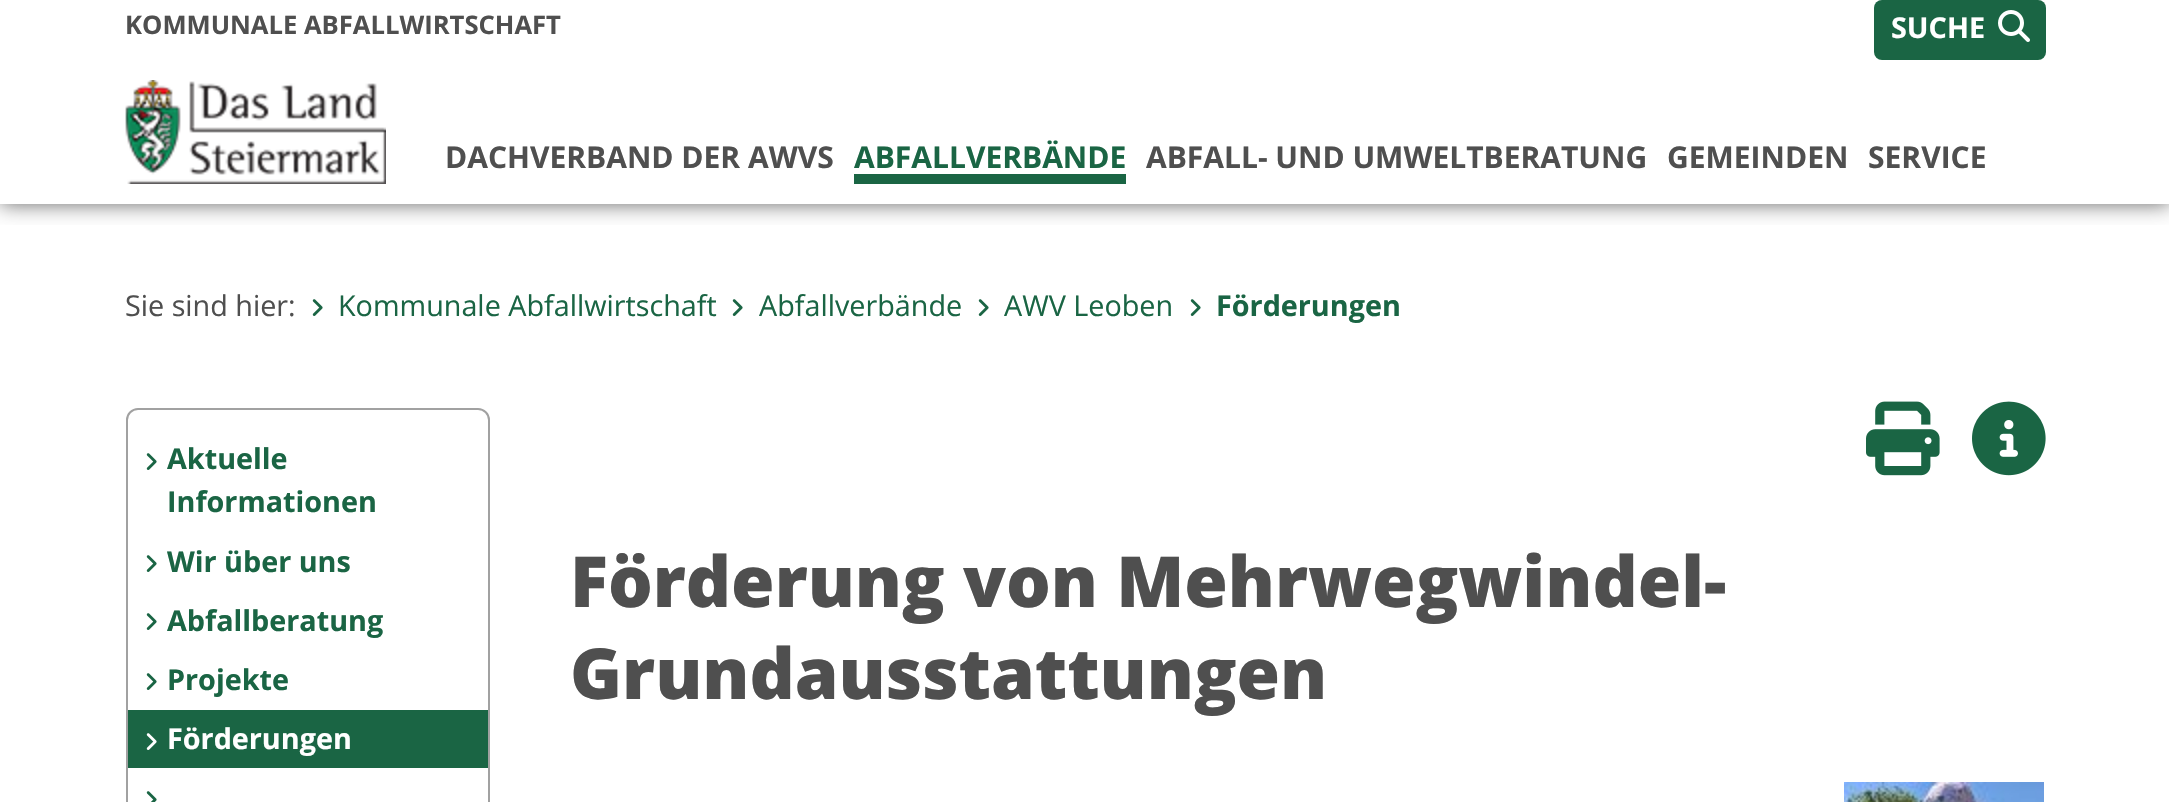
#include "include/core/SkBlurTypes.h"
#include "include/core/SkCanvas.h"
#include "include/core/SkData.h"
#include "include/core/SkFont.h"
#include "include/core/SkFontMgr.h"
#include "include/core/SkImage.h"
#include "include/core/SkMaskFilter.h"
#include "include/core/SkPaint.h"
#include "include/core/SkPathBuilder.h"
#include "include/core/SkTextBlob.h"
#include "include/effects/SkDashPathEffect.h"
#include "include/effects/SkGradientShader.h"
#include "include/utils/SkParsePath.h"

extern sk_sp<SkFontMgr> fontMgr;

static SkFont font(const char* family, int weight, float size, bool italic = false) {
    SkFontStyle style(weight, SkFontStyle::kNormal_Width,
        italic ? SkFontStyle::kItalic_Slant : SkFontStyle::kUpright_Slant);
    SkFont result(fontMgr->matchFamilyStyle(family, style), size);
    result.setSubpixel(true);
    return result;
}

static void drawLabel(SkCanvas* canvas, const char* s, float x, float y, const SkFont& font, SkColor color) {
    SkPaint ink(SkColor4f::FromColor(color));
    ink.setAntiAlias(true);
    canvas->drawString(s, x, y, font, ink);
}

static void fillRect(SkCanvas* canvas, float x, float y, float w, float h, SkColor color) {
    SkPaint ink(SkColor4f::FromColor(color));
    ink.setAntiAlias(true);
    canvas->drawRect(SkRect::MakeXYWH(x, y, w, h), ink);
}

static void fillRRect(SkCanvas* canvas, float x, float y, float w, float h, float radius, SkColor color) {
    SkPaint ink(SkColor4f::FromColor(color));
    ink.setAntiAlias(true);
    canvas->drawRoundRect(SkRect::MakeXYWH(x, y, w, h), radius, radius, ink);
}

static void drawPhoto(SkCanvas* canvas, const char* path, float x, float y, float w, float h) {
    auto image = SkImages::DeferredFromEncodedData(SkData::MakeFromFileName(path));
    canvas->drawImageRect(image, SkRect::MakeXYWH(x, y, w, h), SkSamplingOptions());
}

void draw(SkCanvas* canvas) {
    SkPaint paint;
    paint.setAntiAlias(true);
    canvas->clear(0xFFFFFFFF);
    canvas->save();
    canvas->clipRect(SkRect::MakeXYWH(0, 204, 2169, 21));
    paint.setColor(0xFF656565);
    paint.setMaskFilter(SkMaskFilter::MakeBlur(kNormal_SkBlurStyle, 10));
    canvas->drawRect(SkRect::MakeXYWH(0, 0, 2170, 204), paint);
    paint.setMaskFilter(nullptr);
    canvas->restore();
    SkFont font1 = font("Open Sans", 700, 25.6f);
    drawLabel(canvas, "KOMMUNALE ABFALLWIRTSCHAFT", 125, 34, font1, 0xFF4F4F4F);
    fillRRect(canvas, 1874, 0, 172, 60, 8, 0xFF1A6544);
    SkFont font2 = font("Open Sans", 700, 28.75f);
    drawLabel(canvas, "SUCHE", 1891, 38, font2, 0xFFFFFFFF);
    drawPhoto(canvas, "assets/img1.png", 1998, 10, 32, 32);
    drawPhoto(canvas, "assets/img2.png", 125, 80, 261, 104);
    SkFont font3 = font("Open Sans", 700, 30);
    drawLabel(canvas, "DACHVERBAND DER AWVS", 445, 168, font3, 0xFF4F4F4F);
    drawLabel(canvas, "ABFALLVERBÄNDE", 854, 168, font3, 0xFF1A6544);
    fillRect(canvas, 854, 174, 272, 10, 0xFF1A6544);
    drawLabel(canvas, "ABFALL- UND UMWELTBERATUNG", 1146, 168, font3, 0xFF4F4F4F);
    drawLabel(canvas, "GEMEINDEN", 1667, 168, font3, 0xFF4F4F4F);
    drawLabel(canvas, "SERVICE", 1868, 168, font3, 0xFF4F4F4F);
    SkFont font4 = font("Open Sans", 400, 28.75f);
    drawLabel(canvas, "Sie sind hier:", 125, 316, font4, 0xFF4F4F4F);
    drawPhoto(canvas, "assets/img3.png", 312, 299, 11, 17);
    drawLabel(canvas, "Kommunale Abfallwirtschaft", 338, 316, font4, 0xFF1A6544);
    drawPhoto(canvas, "assets/img3.png", 732, 299, 11, 17);
    drawLabel(canvas, "Abfallverbände", 759, 316, font4, 0xFF1A6544);
    drawPhoto(canvas, "assets/img3.png", 978, 299, 11, 17);
    drawLabel(canvas, "AWV Leoben", 1004, 316, font4, 0xFF1A6544);
    drawPhoto(canvas, "assets/img3.png", 1190, 299, 11, 17);
    drawLabel(canvas, "Förderungen", 1216, 316, font2, 0xFF1A6544);
    paint.setStroke(true);
    paint.setStrokeWidth(2);
    paint.setColor(0xFFA1A1A1);
    canvas->drawRoundRect(SkRect::MakeXYWH(127, 409, 362, 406), 11, 11, paint);
    drawPhoto(canvas, "assets/img3.png", 146, 453, 11, 17);
    drawLabel(canvas, "Aktuelle", 167, 469, font2, 0xFF1A6544);
    drawLabel(canvas, "Informationen", 167, 512, font2, 0xFF1A6544);
    drawPhoto(canvas, "assets/img3.png", 146, 555, 11, 17);
    drawLabel(canvas, "Wir über uns", 167, 572, font2, 0xFF1A6544);
    drawPhoto(canvas, "assets/img3.png", 146, 613, 11, 17);
    drawLabel(canvas, "Abfallberatung", 167, 631, font2, 0xFF1A6544);
    drawPhoto(canvas, "assets/img3.png", 146, 673, 11, 17);
    drawLabel(canvas, "Projekte", 167, 690, font2, 0xFF1A6544);
    fillRect(canvas, 128, 710, 360, 58, 0xFF1A6544);
    drawPhoto(canvas, "assets/img4.png", 146, 733, 11, 17);
    drawLabel(canvas, "Förderungen", 167, 749, font2, 0xFFFFFFFF);
    drawPhoto(canvas, "assets/img5.png", 146, 791, 11, 11);
    drawPhoto(canvas, "assets/img6.png", 1866, 401, 74, 75);
    drawPhoto(canvas, "assets/img7.png", 1972, 401, 74, 75);
    SkFont font5 = font("Open Sans", 800, 70.4f);
    drawLabel(canvas, "Förderung von Mehrwegwindel-", 570, 607, font5, 0xFF4F4F4F);
    drawLabel(canvas, "Grundausstattungen", 570, 699, font5, 0xFF4F4F4F);
    drawPhoto(canvas, "assets/img8.png", 1844, 782, 200, 20);
}
